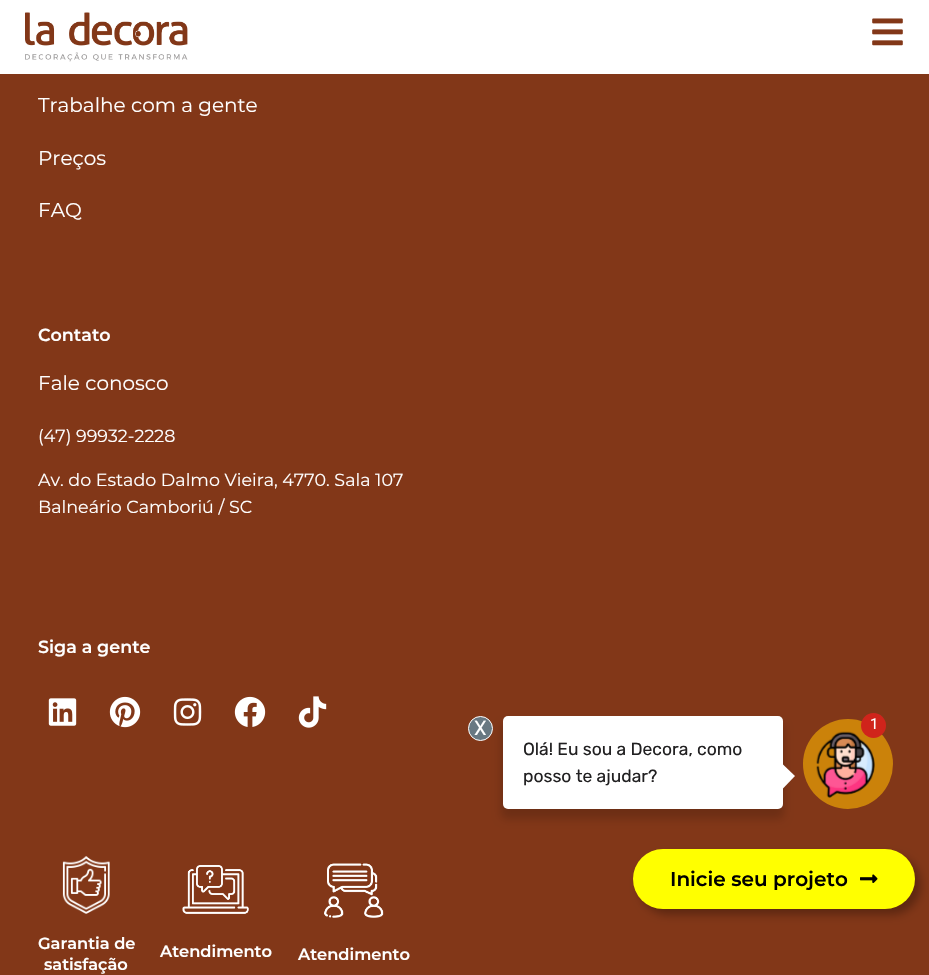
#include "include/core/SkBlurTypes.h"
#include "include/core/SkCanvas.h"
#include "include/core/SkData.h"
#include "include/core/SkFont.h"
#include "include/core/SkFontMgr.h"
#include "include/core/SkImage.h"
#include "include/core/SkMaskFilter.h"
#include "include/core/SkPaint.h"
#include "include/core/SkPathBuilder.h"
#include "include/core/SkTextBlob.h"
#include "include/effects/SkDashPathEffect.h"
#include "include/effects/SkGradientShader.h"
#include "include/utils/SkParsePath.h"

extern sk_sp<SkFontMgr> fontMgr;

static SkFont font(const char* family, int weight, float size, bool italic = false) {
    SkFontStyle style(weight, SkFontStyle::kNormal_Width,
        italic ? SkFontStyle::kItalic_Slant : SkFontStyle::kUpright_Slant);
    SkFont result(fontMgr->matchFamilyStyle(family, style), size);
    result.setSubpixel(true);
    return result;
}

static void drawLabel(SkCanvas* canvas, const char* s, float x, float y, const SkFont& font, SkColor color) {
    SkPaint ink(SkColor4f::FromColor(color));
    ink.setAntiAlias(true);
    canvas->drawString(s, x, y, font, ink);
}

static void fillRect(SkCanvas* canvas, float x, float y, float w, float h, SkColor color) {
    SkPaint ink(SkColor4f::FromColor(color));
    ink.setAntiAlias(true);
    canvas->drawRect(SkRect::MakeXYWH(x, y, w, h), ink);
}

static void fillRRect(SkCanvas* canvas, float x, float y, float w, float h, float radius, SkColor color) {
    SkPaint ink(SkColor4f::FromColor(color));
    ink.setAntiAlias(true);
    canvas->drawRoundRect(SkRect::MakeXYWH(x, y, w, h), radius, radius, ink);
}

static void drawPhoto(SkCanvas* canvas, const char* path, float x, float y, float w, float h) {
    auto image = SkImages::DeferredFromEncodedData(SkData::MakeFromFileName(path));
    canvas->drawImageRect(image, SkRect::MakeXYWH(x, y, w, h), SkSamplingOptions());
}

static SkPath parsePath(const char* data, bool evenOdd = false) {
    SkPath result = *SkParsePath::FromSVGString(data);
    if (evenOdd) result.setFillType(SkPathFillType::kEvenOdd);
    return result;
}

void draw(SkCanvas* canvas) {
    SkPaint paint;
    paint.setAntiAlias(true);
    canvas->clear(0xFF823718);
    fillRect(canvas, 0, 0, 929, 74, 0xFFFFFFFF);
    drawPhoto(canvas, "assets/img1.png", 25, 12, 163, 50);
    drawPhoto(canvas, "assets/img2.png", 872, 18, 31, 28);
    SkFont font1 = font("Montserrat", 400, 20);
    drawLabel(canvas, "Trabalhe com a gente", 38, 112, font1, 0xFFFFFFFF);
    drawLabel(canvas, "Preços", 38, 165, font1, 0xFFFFFFFF);
    drawLabel(canvas, "FAQ", 38, 217, font1, 0xFFFFFFFF);
    SkFont font2 = font("Montserrat", 600, 17.5f);
    drawLabel(canvas, "Contato", 38, 341, font2, 0xFFFFFFFF);
    drawLabel(canvas, "Fale conosco", 38, 390, font1, 0xFFFFFFFF);
    SkFont font3 = font("Montserrat", 400, 17.5f);
    drawLabel(canvas, "(47) 99932-2228", 38, 442, font3, 0xFFFFFFFF);
    drawLabel(canvas, "Av. do Estado Dalmo Vieira, 4770. Sala 107", 38, 486, font3, 0xFFFFFFFF);
    drawLabel(canvas, "Balneário Camboriú / SC", 38, 513, font3, 0xFFFFFFFF);
    drawLabel(canvas, "Siga a gente", 38, 653, font2, 0xFFFFFFFF);
    drawPhoto(canvas, "assets/img3.png", 48, 698, 29, 28);
    drawPhoto(canvas, "assets/img4.png", 109, 696, 32, 32);
    drawPhoto(canvas, "assets/img5.png", 173, 698, 29, 28);
    drawPhoto(canvas, "assets/img6.png", 234, 696, 32, 31);
    drawPhoto(canvas, "assets/img7.png", 298, 696, 29, 32);
    paint.setColor(0x47000000);
    paint.setMaskFilter(SkMaskFilter::MakeBlur(kNormal_SkBlurStyle, 4));
    canvas->drawRoundRect(SkRect::MakeXYWH(639, 855, 282, 60), 30, 30, paint);
    paint.setMaskFilter(nullptr);
    fillRRect(canvas, 633, 849, 282, 60, 30, 0xFFFFFF00);
    SkFont font4 = font("Montserrat", 600, 20);
    drawLabel(canvas, "Inicie seu projeto", 670, 886, font4, 0xFF000000);
    drawPhoto(canvas, "assets/img8.png", 860, 874, 18, 9);
    drawPhoto(canvas, "assets/img9.png", 62, 856, 48, 58);
    SkFont font5 = font("Montserrat", 600, 16.25f);
    drawLabel(canvas, "Garantia de", 38, 949, font5, 0xFFFFFFFF);
    drawLabel(canvas, "satisfação", 44, 970, font5, 0xFFFFFFFF);
    drawPhoto(canvas, "assets/img10.png", 182, 865, 67, 49);
    drawLabel(canvas, "Atendimento", 160, 957, font5, 0xFFFFFFFF);
    drawPhoto(canvas, "assets/img11.png", 324, 863, 60, 55);
    drawLabel(canvas, "Atendimento", 298, 960, font5, 0xFFFFFFFF);
    paint.setColor(0x29000000);
    paint.setMaskFilter(SkMaskFilter::MakeBlur(kNormal_SkBlurStyle, 4));
    canvas->drawRoundRect(SkRect::MakeXYWH(501, 724, 283, 95), 6, 6, paint);
    paint.setMaskFilter(nullptr);
    paint.setColor(0xFF687882);
    canvas->drawCircle(480.5f, 728.5f, 12, paint);
    paint.setStroke(true);
    paint.setStrokeWidth(1);
    paint.setColor(0xFFFFFFFF);
    canvas->drawCircle(480.5f, 728.5f, 12, paint);
    SkFont font6 = font("Roboto", 400, 20);
    drawLabel(canvas, "X", 474, 735, font6, 0xFFFFFFFF);
    paint.setStroke(false);
    paint.setColor(0xFFCB820A);
    canvas->drawCircle(848, 764, 45, paint);
    drawPhoto(canvas, "assets/img12.png", 816, 731, 59, 67);
    paint.setColor(0xFFD0241B);
    canvas->drawCircle(873.5f, 725.5f, 12.5f, paint);
    SkFont font7 = font("Roboto", 400, 15);
    drawLabel(canvas, "1", 870, 729, font7, 0xFFFFFFFF);
    fillRRect(canvas, 503, 716, 280, 93, 5, 0xFFFFFFFF);
    SkFont font8 = font("Rubik", 400, 17.5f);
    drawLabel(canvas, "Olá! Eu sou a Decora, como", 523, 755, font8, 0xFF212021);
    drawLabel(canvas, "posso te ajudar?", 523, 782, font8, 0xFF212021);
    paint.setColor(0xFFFFFFFF);
    canvas->drawPath(parsePath("M782.5 789V764L795 776Z"), paint);
}
